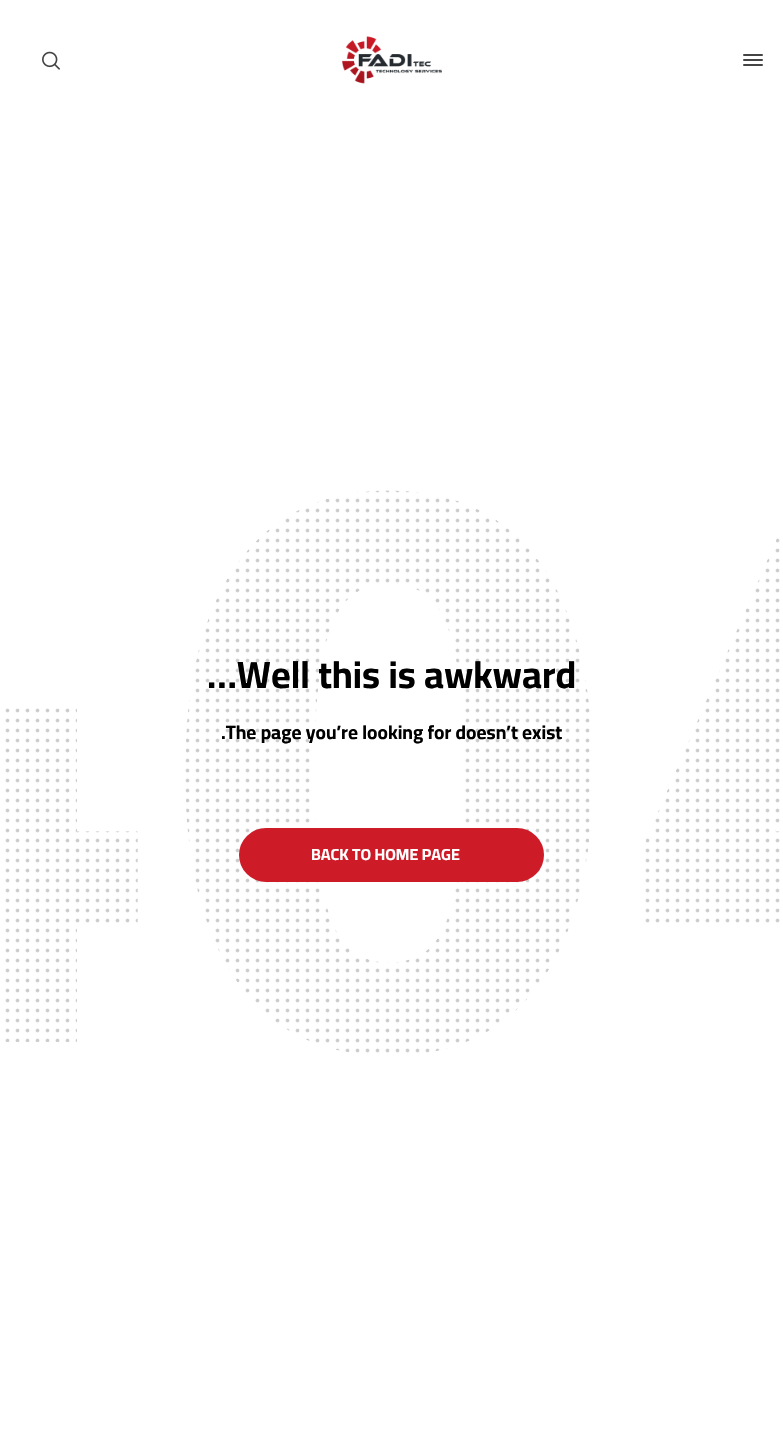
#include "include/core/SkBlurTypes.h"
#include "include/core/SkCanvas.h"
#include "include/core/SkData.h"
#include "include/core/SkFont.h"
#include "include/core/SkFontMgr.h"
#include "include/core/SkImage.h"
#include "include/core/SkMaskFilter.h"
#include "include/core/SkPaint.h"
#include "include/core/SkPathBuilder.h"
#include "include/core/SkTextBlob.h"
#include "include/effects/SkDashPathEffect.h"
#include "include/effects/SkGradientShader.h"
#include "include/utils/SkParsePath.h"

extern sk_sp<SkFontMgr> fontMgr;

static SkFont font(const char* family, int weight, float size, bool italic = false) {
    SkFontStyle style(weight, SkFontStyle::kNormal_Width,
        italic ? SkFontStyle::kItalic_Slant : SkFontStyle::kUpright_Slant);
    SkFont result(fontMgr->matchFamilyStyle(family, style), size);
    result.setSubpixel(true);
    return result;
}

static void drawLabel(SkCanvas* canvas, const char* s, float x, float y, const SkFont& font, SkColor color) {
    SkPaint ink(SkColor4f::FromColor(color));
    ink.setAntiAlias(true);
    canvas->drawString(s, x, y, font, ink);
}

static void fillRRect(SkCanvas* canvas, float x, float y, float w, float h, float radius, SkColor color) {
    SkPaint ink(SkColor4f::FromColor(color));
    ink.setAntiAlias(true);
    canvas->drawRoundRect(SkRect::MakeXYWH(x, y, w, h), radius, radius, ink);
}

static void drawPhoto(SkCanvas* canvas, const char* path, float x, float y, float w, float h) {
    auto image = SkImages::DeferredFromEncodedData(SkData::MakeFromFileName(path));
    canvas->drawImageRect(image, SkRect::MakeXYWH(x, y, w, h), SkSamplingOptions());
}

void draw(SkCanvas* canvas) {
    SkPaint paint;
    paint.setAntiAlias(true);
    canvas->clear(0xFFFFFFFF);
    drawPhoto(canvas, "assets/img1.png", 42, 51, 18, 19);
    drawPhoto(canvas, "assets/img2.png", 342, 36, 100, 48);
    fillRRect(canvas, 743, 54, 20, 2, 1, 0xFF444444);
    fillRRect(canvas, 743, 59, 20, 2, 1, 0xFF444444);
    fillRRect(canvas, 743, 64, 20, 2, 1, 0xFF444444);
    drawPhoto(canvas, "assets/img3.png", 5, 490, 775, 563);
    SkFont font1 = font("Cairo", 700, 38);
    drawLabel(canvas, "…Well this is awkward", 207, 688, font1, 0xFF000000);
    SkFont font2 = font("Cairo", 700, 19.25f);
    drawLabel(canvas, ".The page you’re looking for doesn’t exist", 221, 739, font2, 0xFF000000);
    paint.setColor(0xFFCE1B28);
    canvas->drawRoundRect(SkRect::MakeXYWH(240, 829, 303, 52), 26, 26, paint);
    paint.setStroke(true);
    paint.setStrokeWidth(2);
    canvas->drawRoundRect(SkRect::MakeXYWH(240, 829, 303, 52), 26, 26, paint);
    SkFont font3 = font("Cairo", 700, 16);
    drawLabel(canvas, "BACK TO HOME PAGE", 311, 860, font3, 0xFFFFFFFF);
}
